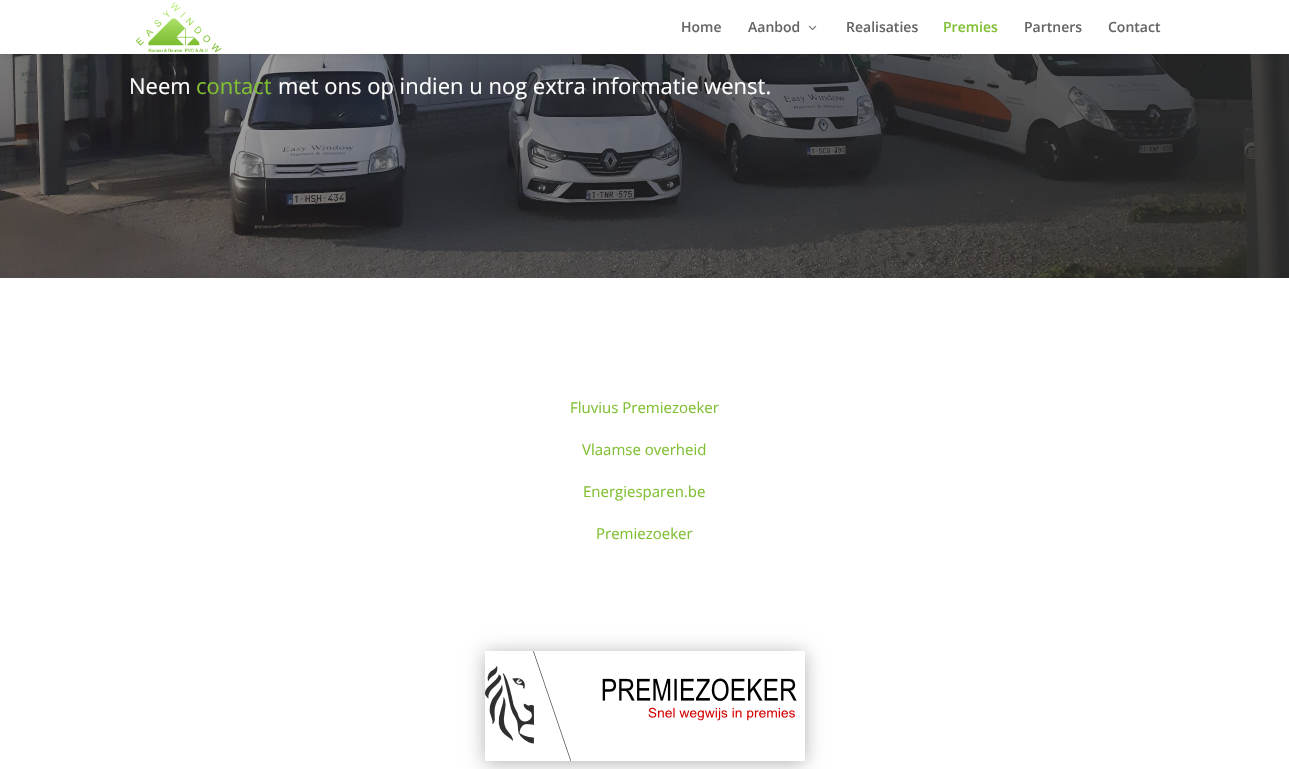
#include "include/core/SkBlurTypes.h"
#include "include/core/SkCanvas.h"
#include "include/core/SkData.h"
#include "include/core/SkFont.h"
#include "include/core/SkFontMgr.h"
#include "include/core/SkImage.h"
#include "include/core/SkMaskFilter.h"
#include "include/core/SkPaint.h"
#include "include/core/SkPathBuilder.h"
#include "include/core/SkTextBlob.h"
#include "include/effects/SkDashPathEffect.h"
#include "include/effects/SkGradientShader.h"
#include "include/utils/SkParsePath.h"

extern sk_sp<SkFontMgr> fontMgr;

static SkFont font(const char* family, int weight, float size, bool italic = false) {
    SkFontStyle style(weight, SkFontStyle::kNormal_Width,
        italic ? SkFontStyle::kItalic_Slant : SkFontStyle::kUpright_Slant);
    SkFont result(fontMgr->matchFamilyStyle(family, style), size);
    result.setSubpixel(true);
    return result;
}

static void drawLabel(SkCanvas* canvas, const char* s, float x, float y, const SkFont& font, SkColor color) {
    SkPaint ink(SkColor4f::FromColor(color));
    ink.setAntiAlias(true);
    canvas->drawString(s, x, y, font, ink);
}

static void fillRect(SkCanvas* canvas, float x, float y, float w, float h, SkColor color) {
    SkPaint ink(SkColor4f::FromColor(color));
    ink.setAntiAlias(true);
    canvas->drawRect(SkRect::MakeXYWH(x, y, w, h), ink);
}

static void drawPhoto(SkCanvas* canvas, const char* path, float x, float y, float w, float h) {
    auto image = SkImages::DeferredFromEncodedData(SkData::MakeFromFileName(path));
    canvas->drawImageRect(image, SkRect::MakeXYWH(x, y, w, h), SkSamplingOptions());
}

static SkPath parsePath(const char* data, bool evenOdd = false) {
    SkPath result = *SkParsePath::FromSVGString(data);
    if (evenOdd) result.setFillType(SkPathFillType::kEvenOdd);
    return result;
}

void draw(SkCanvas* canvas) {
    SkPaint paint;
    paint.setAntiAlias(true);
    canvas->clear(0xFFFFFFFF);
    drawPhoto(canvas, "assets/img3.png", 0, 54, 1289, 224);
    paint.setColor(0x1A000000);
    paint.setMaskFilter(SkMaskFilter::MakeBlur(kNormal_SkBlurStyle, 3.5f));
    canvas->drawRect(SkRect::MakeXYWH(0, 0, 1289, 54), paint);
    paint.setMaskFilter(nullptr);
    fillRect(canvas, 0, 0, 1289, 54, 0xFFFFFFFF);
    drawPhoto(canvas, "assets/img1.png", 135, 2, 87, 51);
    SkFont font1 = font("Open Sans", 600, 14);
    drawLabel(canvas, "Home", 681, 32, font1, 0xFF666666);
    drawLabel(canvas, "Aanbod", 748, 32, font1, 0xFF666666);
    drawPhoto(canvas, "assets/img2.png", 808, 25, 9, 5);
    drawLabel(canvas, "Realisaties", 846, 32, font1, 0xFF666666);
    drawLabel(canvas, "Premies", 943, 32, font1, 0xFF81C034);
    drawLabel(canvas, "Partners", 1024, 32, font1, 0xFF666666);
    drawLabel(canvas, "Contact", 1108, 32, font1, 0xFF666666);
    SkFont font2 = font("Open Sans", 400, 22);
    drawLabel(canvas, "Neem", 129, 94, font2, 0xFFFFFFFF);
    drawLabel(canvas, "contact", 196, 94, font2, 0xFF81C034);
    drawLabel(canvas, "met ons op indien u nog extra informatie wenst.", 278, 94, font2, 0xFFFFFFFF);
    SkFont font3 = font("Open Sans", 400, 15);
    drawLabel(canvas, "Fluvius Premiezoeker", 570, 413, font3, 0xFF81C034);
    drawLabel(canvas, "Vlaamse overheid", 582, 455, font3, 0xFF81C034);
    drawLabel(canvas, "Energiesparen.be", 583, 497, font3, 0xFF81C034);
    drawLabel(canvas, "Premiezoeker", 596, 539, font3, 0xFF81C034);
    canvas->save();
    canvas->clipPath(parsePath("M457 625H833V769H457ZM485 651H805V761H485Z", true), true);
    paint.setColor(0x4D000000);
    paint.setMaskFilter(SkMaskFilter::MakeBlur(kNormal_SkBlurStyle, 9));
    canvas->drawRect(SkRect::MakeXYWH(485, 653, 320, 110), paint);
    paint.setMaskFilter(nullptr);
    canvas->restore();
    drawPhoto(canvas, "assets/img4.png", 485, 651, 312, 110);
}
